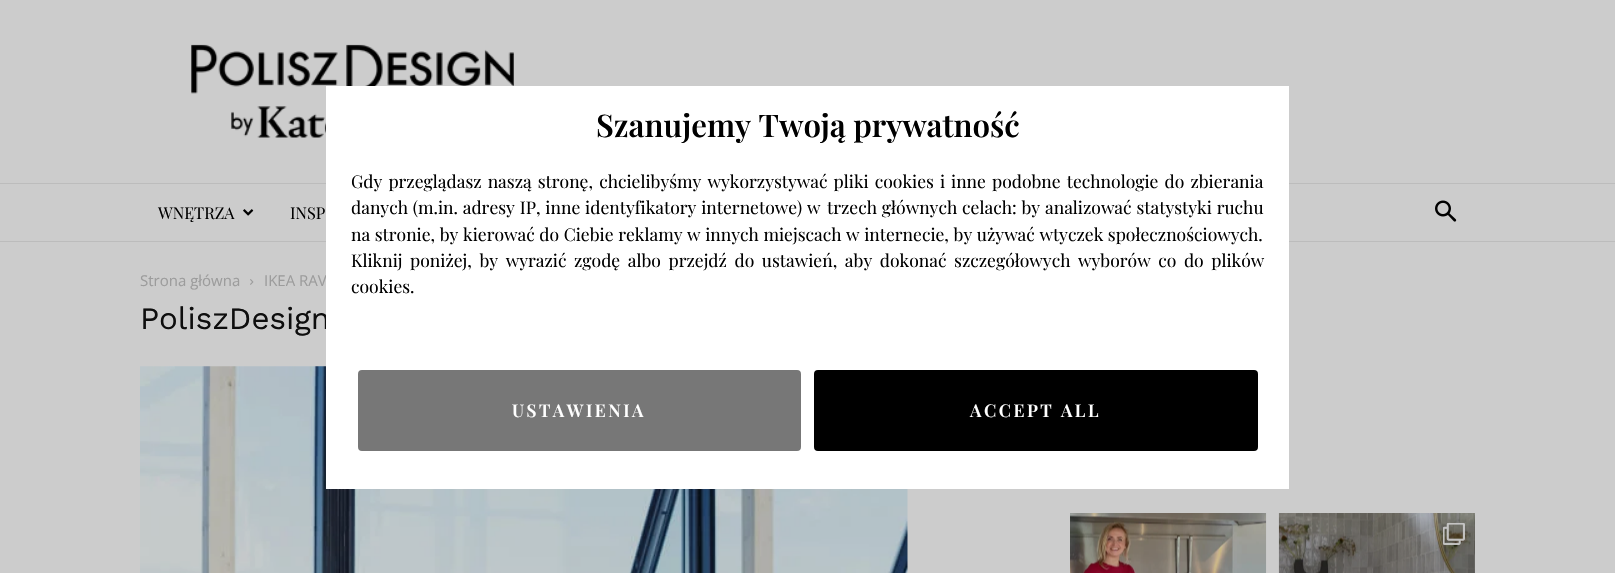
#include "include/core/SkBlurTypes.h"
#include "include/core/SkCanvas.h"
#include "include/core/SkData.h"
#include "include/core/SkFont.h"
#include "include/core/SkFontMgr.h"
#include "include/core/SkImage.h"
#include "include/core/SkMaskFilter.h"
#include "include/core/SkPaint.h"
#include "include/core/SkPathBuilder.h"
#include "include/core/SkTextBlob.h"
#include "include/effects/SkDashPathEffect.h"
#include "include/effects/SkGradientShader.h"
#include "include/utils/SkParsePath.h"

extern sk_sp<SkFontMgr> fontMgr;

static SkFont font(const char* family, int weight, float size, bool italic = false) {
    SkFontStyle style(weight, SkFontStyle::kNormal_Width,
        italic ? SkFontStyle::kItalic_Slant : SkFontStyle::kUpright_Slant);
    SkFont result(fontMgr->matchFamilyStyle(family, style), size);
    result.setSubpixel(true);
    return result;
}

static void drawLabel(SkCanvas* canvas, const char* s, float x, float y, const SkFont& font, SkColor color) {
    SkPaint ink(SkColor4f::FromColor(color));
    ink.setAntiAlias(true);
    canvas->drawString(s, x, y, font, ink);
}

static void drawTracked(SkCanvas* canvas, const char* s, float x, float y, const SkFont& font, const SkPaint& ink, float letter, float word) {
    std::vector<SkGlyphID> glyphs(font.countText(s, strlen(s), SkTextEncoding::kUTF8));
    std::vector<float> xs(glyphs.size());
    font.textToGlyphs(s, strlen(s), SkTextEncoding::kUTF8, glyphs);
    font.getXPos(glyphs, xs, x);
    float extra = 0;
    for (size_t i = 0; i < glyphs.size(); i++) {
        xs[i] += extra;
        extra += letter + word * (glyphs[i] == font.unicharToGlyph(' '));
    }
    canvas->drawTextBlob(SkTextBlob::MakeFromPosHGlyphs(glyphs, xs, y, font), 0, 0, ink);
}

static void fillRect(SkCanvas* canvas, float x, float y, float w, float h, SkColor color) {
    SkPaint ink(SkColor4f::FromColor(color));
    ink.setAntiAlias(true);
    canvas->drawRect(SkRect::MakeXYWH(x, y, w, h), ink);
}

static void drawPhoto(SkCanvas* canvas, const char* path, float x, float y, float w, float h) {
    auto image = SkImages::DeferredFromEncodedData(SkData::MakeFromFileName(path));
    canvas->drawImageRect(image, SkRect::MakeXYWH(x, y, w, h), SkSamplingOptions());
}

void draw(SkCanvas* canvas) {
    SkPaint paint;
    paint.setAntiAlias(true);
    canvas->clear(0xFFCCCCCC);
    drawPhoto(canvas, "assets/img1.png", 191, 44, 323, 94);
    fillRect(canvas, 0, 183, 1615, 1, 0xFFBCBCBC);
    SkFont font1 = font("Playfair Display", 400, 16.25f);
    drawLabel(canvas, "WNĘTRZA", 158, 219, font1, 0xFF000000);
    drawPhoto(canvas, "assets/img2.png", 243, 209, 11, 7);
    drawLabel(canvas, "INSP", 290, 219, font1, 0xFF000000);
    drawPhoto(canvas, "assets/img3.png", 1435, 200, 22, 22);
    fillRect(canvas, 0, 241, 1615, 1, 0xFFBCBCBC);
    SkFont font2 = font("Open Sans", 400, 15);
    drawLabel(canvas, "Strona główna", 140, 286, font2, 0xFF9C9C9C);
    drawPhoto(canvas, "assets/img4.png", 250, 279, 4, 6);
    drawLabel(canvas, "IKEA RAV", 264, 286, font2, 0xFF9C9C9C);
    SkFont font3 = font("Work Sans", 400, 31.25f);
    drawLabel(canvas, "PoliszDesign", 140, 329, font3, 0xFF0E0E0E);
    drawPhoto(canvas, "assets/img5.png", 140, 366, 768, 207);
    drawPhoto(canvas, "assets/img6.png", 1070, 513, 197, 60);
    drawPhoto(canvas, "assets/img7.png", 1278, 513, 197, 60);
    drawPhoto(canvas, "assets/img8.png", 1443, 523, 22, 22);
    fillRect(canvas, 326, 86, 963, 403, 0xFFFFFFFF);
    SkFont font4 = font("Playfair Display", 600, 31.25f);
    drawLabel(canvas, "Szanujemy Twoją prywatność", 596, 137, font4, 0xFF000000);
    SkFont font5 = font("Playfair Display", 400, 17.5f);
    paint.setColor(0xFF000000);
    drawTracked(canvas, "Gdy przeglądasz naszą stronę, chcielibyśmy wykorzystywać pliki cookies i", 351, 188, font5, paint, 0, 1.75f);
    drawTracked(canvas, "inne podobne technologie do zbierania", 951, 188, font5, paint, 0, 1.75f);
    drawTracked(canvas, "danych (m.in. adresy IP, inne identyfikatory internetowe) w", 351, 214, font5, paint, 0, 0.5f);
    drawTracked(canvas, "trzech głównych celach: by analizować statystyki ruchu", 827, 214, font5, paint, 0, 0.5f);
    drawTracked(canvas, "na stronie, by kierować do Ciebie reklamy w innych miejscach w internecie, by używać wtyczek społecznościowych.", 351, 241, font5, paint, 0, 0.25f);
    drawTracked(canvas, "Kliknij poniżej, by wyrazić", 351, 267, font5, paint, 0, 3.25f);
    drawTracked(canvas, "zgodę albo przejdź do ustawień, aby dokonać szczegółowych wyborów co do plików", 574, 267, font5, paint, 0, 3.25f);
    drawLabel(canvas, "cookies.", 351, 293, font5, 0xFF000000);
    paint.setColor(0xFF777777);
    canvas->drawRoundRect(SkRect::MakeXYWH(359.5f, 371.5f, 440, 78), 2.5f, 2.5f, paint);
    paint.setStroke(true);
    paint.setStrokeWidth(3);
    canvas->drawRoundRect(SkRect::MakeXYWH(359.5f, 371.5f, 440, 78), 2.5f, 2.5f, paint);
    SkFont font6 = font("Playfair Display", 600, 17.5f);
    paint.setStroke(false);
    paint.setColor(0xFFFFFFFF);
    drawTracked(canvas, "USTAWIENIA", 512, 417, font6, paint, 2.5f, 0);
    paint.setColor(0xFF000000);
    canvas->drawRoundRect(SkRect::MakeXYWH(815.5f, 371.5f, 441, 78), 2.5f, 2.5f, paint);
    paint.setStroke(true);
    canvas->drawRoundRect(SkRect::MakeXYWH(815.5f, 371.5f, 441, 78), 2.5f, 2.5f, paint);
    paint.setStroke(false);
    paint.setColor(0xFFFFFFFF);
    drawTracked(canvas, "ACCEPT ALL", 970, 417, font6, paint, 2.5f, 0);
}
